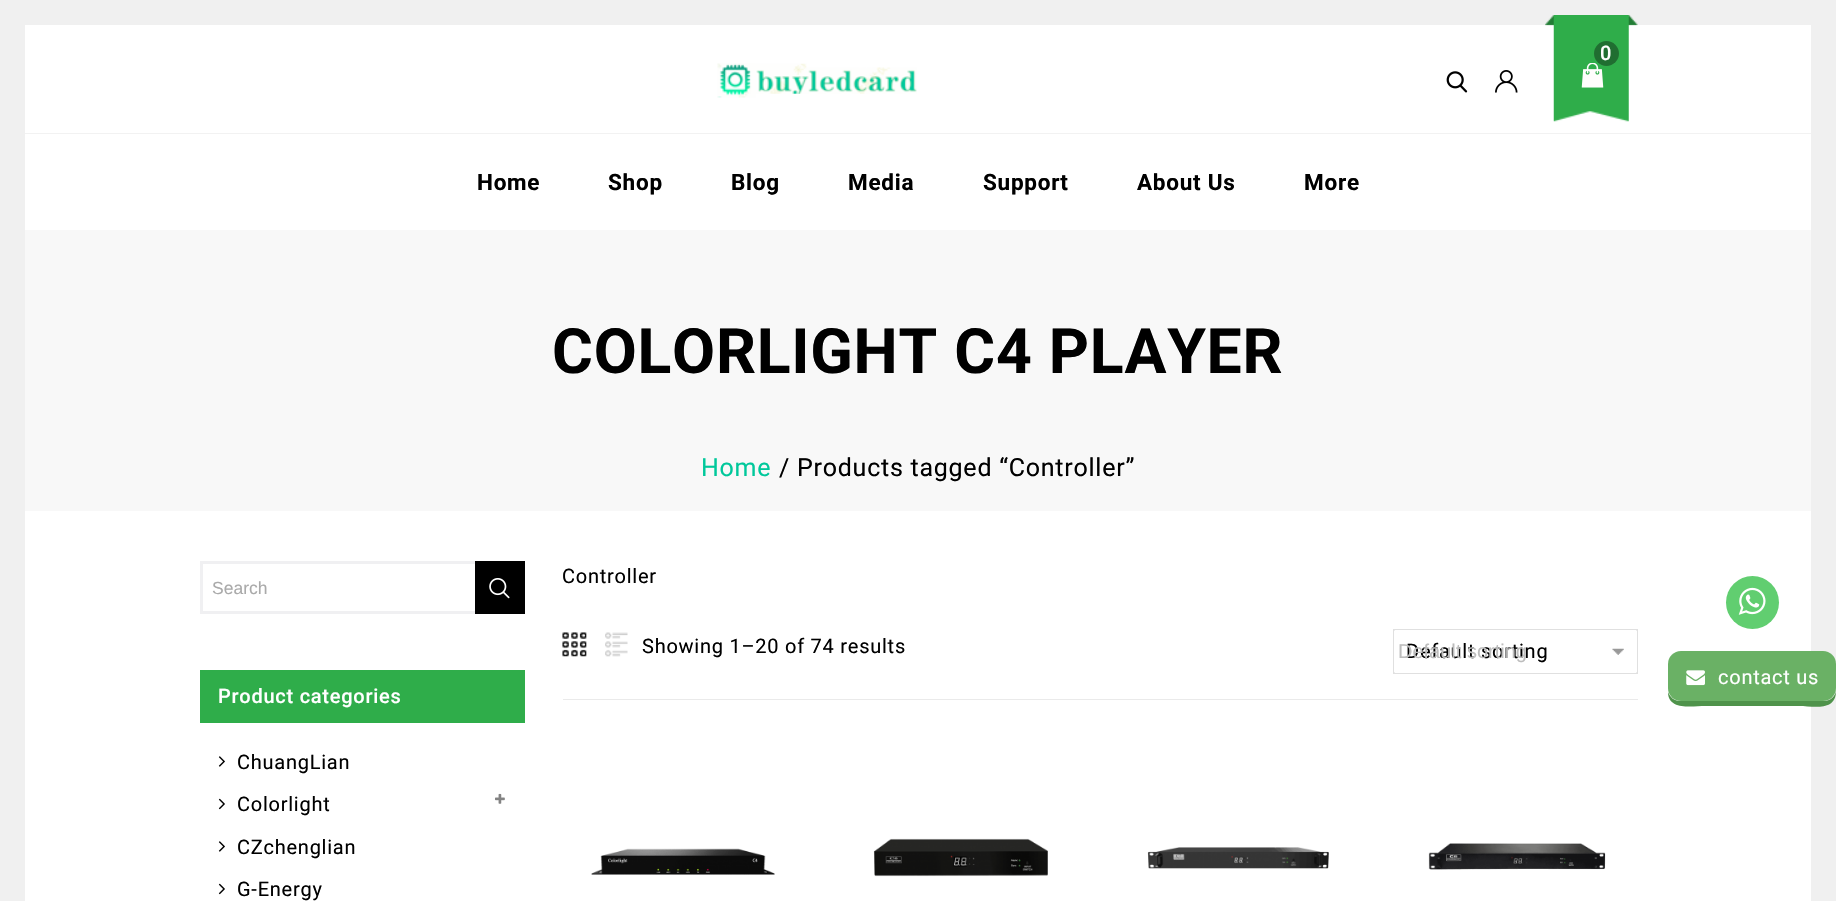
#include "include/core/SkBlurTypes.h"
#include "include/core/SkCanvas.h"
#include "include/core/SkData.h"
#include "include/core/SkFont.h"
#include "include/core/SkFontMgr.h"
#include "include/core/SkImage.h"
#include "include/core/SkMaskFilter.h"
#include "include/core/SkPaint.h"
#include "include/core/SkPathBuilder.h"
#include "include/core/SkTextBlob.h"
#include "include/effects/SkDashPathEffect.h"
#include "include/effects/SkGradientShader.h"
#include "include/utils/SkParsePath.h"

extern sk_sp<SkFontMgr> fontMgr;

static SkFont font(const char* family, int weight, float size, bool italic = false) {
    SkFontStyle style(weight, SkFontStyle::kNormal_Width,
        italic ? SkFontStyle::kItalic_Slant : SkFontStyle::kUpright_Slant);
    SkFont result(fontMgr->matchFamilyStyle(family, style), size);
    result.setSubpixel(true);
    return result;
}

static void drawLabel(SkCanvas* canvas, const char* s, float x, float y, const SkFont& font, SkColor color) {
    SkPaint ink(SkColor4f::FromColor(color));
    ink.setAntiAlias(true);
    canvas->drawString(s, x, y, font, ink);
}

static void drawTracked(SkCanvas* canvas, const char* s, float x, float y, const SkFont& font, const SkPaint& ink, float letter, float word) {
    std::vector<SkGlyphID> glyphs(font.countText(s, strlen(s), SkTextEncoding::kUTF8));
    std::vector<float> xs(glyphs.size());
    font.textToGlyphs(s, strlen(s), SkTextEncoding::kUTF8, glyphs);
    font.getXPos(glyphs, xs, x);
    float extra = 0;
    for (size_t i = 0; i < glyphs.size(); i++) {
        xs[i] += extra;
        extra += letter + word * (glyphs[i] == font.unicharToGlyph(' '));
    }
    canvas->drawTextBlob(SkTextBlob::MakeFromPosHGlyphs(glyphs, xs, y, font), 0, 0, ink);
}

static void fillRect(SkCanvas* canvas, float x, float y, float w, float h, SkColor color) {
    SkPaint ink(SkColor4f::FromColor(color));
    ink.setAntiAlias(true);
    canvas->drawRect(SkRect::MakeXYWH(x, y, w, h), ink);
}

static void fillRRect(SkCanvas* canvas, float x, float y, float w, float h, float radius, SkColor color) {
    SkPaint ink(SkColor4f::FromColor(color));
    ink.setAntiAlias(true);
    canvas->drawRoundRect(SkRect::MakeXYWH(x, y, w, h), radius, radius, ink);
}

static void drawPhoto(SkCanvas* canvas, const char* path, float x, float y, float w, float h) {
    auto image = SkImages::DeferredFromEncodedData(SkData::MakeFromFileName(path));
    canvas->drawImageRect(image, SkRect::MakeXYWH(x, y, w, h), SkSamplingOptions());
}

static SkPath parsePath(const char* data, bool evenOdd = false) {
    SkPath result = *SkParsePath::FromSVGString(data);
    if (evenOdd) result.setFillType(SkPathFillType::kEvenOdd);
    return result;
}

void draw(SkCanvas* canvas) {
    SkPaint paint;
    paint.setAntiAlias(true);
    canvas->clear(0xFFF0F0F0);
    fillRect(canvas, 25, 25, 1786, 876, 0xFFFFFFFF);
    fillRect(canvas, 25, 133, 1786, 1, 0xFFF2F2F2);
    drawPhoto(canvas, "assets/img1.png", 1545, 15, 93, 107);
    drawPhoto(canvas, "assets/img2.png", 1581, 63, 23, 25);
    paint.setColor(0xFF206E31);
    canvas->drawCircle(1606.5f, 53.5f, 12.5f, paint);
    SkFont font1 = font("Roboto", 500, 20);
    paint.setColor(0xFFFFFFFF);
    drawTracked(canvas, "0", 1600, 60, font1, paint, 0.75f, 0);
    drawPhoto(canvas, "assets/img3.png", 1446, 71, 22, 22);
    drawPhoto(canvas, "assets/img4.png", 1495, 70, 23, 23);
    drawPhoto(canvas, "assets/img5.png", 717, 63, 200, 35);
    SkFont font2 = font("Roboto", 700, 22.5f);
    paint.setColor(0xFF000000);
    drawTracked(canvas, "Home", 477, 190, font2, paint, 0.75f, 0);
    drawTracked(canvas, "Shop", 608, 190, font2, paint, 0.75f, 0);
    drawTracked(canvas, "Blog", 731, 190, font2, paint, 0.75f, 0);
    drawTracked(canvas, "Media", 848, 190, font2, paint, 0.75f, 0);
    drawTracked(canvas, "Support", 983, 190, font2, paint, 0.75f, 0);
    drawTracked(canvas, "About Us", 1137, 190, font2, paint, 0.75f, 0);
    drawTracked(canvas, "More", 1304, 190, font2, paint, 0.75f, 0);
    fillRect(canvas, 25, 230, 1786, 281, 0xFFF8F8F8);
    SkFont font3 = font("Roboto", 700, 62.5f);
    drawTracked(canvas, "COLORLIGHT C4 PLAYER", 552, 373, font3, paint, 0.75f, 0);
    SkFont font4 = font("Roboto", 400, 25);
    paint.setColor(0xFF00C89B);
    drawTracked(canvas, "Home", 701, 476, font4, paint, 0.75f, 0);
    paint.setColor(0xFF000000);
    drawTracked(canvas, "/ Products tagged “Controller”", 779, 476, font4, paint, 0.75f, 0);
    paint.setStroke(true);
    paint.setStrokeWidth(3);
    paint.setColor(0xFFF0F0F2);
    canvas->drawRect(SkRect::MakeXYWH(201.5f, 562.5f, 276, 50), paint);
    SkFont font5 = font("Liberation Sans", 400, 17.5f);
    drawLabel(canvas, "Search", 212, 594, font5, 0xFFAAAAAA);
    fillRect(canvas, 475, 561, 50, 53, 0xFF000000);
    drawPhoto(canvas, "assets/img6.png", 489, 578, 21, 21);
    fillRect(canvas, 200, 670, 325, 53, 0xFF2FAD4A);
    paint.setStroke(false);
    paint.setColor(0xFFFFFFFF);
    drawTracked(canvas, "Product categories", 218, 703, font1, paint, 0.75f, 0);
    drawPhoto(canvas, "assets/img7.png", 218, 756, 7, 11);
    SkFont font6 = font("Roboto", 400, 20);
    paint.setColor(0xFF000000);
    drawTracked(canvas, "ChuangLian", 237, 769, font6, paint, 0.75f, 0);
    drawPhoto(canvas, "assets/img8.png", 218, 798, 7, 12);
    drawTracked(canvas, "Colorlight", 237, 811, font6, paint, 0.75f, 0);
    drawPhoto(canvas, "assets/img9.png", 495, 793, 10, 11);
    drawPhoto(canvas, "assets/img7.png", 218, 841, 7, 11);
    drawTracked(canvas, "CZchenglian", 237, 854, font6, paint, 0.75f, 0);
    drawPhoto(canvas, "assets/img8.png", 218, 883, 7, 12);
    drawTracked(canvas, "G-Energy", 237, 896, font6, paint, 0.75f, 0);
    drawTracked(canvas, "Controller", 562, 583, font6, paint, 0.75f, 0);
    fillRect(canvas, 563, 699, 1075, 1, 0xFFEAEAEA);
    drawPhoto(canvas, "assets/img10.png", 562, 632, 25, 25);
    drawPhoto(canvas, "assets/img11.png", 605, 632, 23, 25);
    drawTracked(canvas, "Showing 1–20 of 74 results", 642, 653, font6, paint, 0.75f, 0);
    paint.setStroke(true);
    paint.setStrokeWidth(1);
    paint.setColor(0xFFE0E0E0);
    canvas->drawRect(SkRect::MakeXYWH(1393.5f, 629.5f, 244, 44), paint);
    drawPhoto(canvas, "assets/img12.png", 1612, 648, 12, 7);
    paint.setStroke(false);
    paint.setColor(0xFF000000);
    drawTracked(canvas, "Default sorting", 1406, 658, font6, paint, 0.75f, 0);
    paint.setStroke(true);
    paint.setColor(0xFFE0E0E0);
    canvas->drawRoundRect(SkRect::MakeXYWH(1393.5f, 629.5f, 244, 44), 2, 2, paint);
    SkFont font7 = font("Liberation Sans", 400, 20);
    drawLabel(canvas, "Default sorting", 1398, 658, font7, 0xFFBDBDBD);
    drawPhoto(canvas, "assets/img13.png", 591, 848, 184, 27);
    drawPhoto(canvas, "assets/img14.png", 873, 838, 175, 39);
    drawPhoto(canvas, "assets/img15.png", 1147, 847, 182, 22);
    drawPhoto(canvas, "assets/img16.png", 1428, 843, 178, 27);
    paint.setStroke(false);
    paint.setColor(0xFF61CE70);
    canvas->drawCircle(1752.5f, 602.5f, 26.5f, paint);
    drawPhoto(canvas, "assets/img17.png", 1738, 587, 28, 28);
    paint.setColor(0xFF4F934B);
    canvas->drawPath(parsePath("M1668 692C1668 711 1693 706 1705 706H1799C1813 706 1836 712 1836 691C1835 697 1830 701 1824 701H1680C1674 701 1670 697 1668 692Z"), paint);
    fillRRect(canvas, 1668, 651, 168, 50, 13, 0xFF6AB165);
    drawPhoto(canvas, "assets/img18.png", 1686, 670, 19, 16);
    paint.setColor(0xFFFFFFFF);
    drawTracked(canvas, "contact us", 1718, 684, font6, paint, 0.75f, 0);
}
